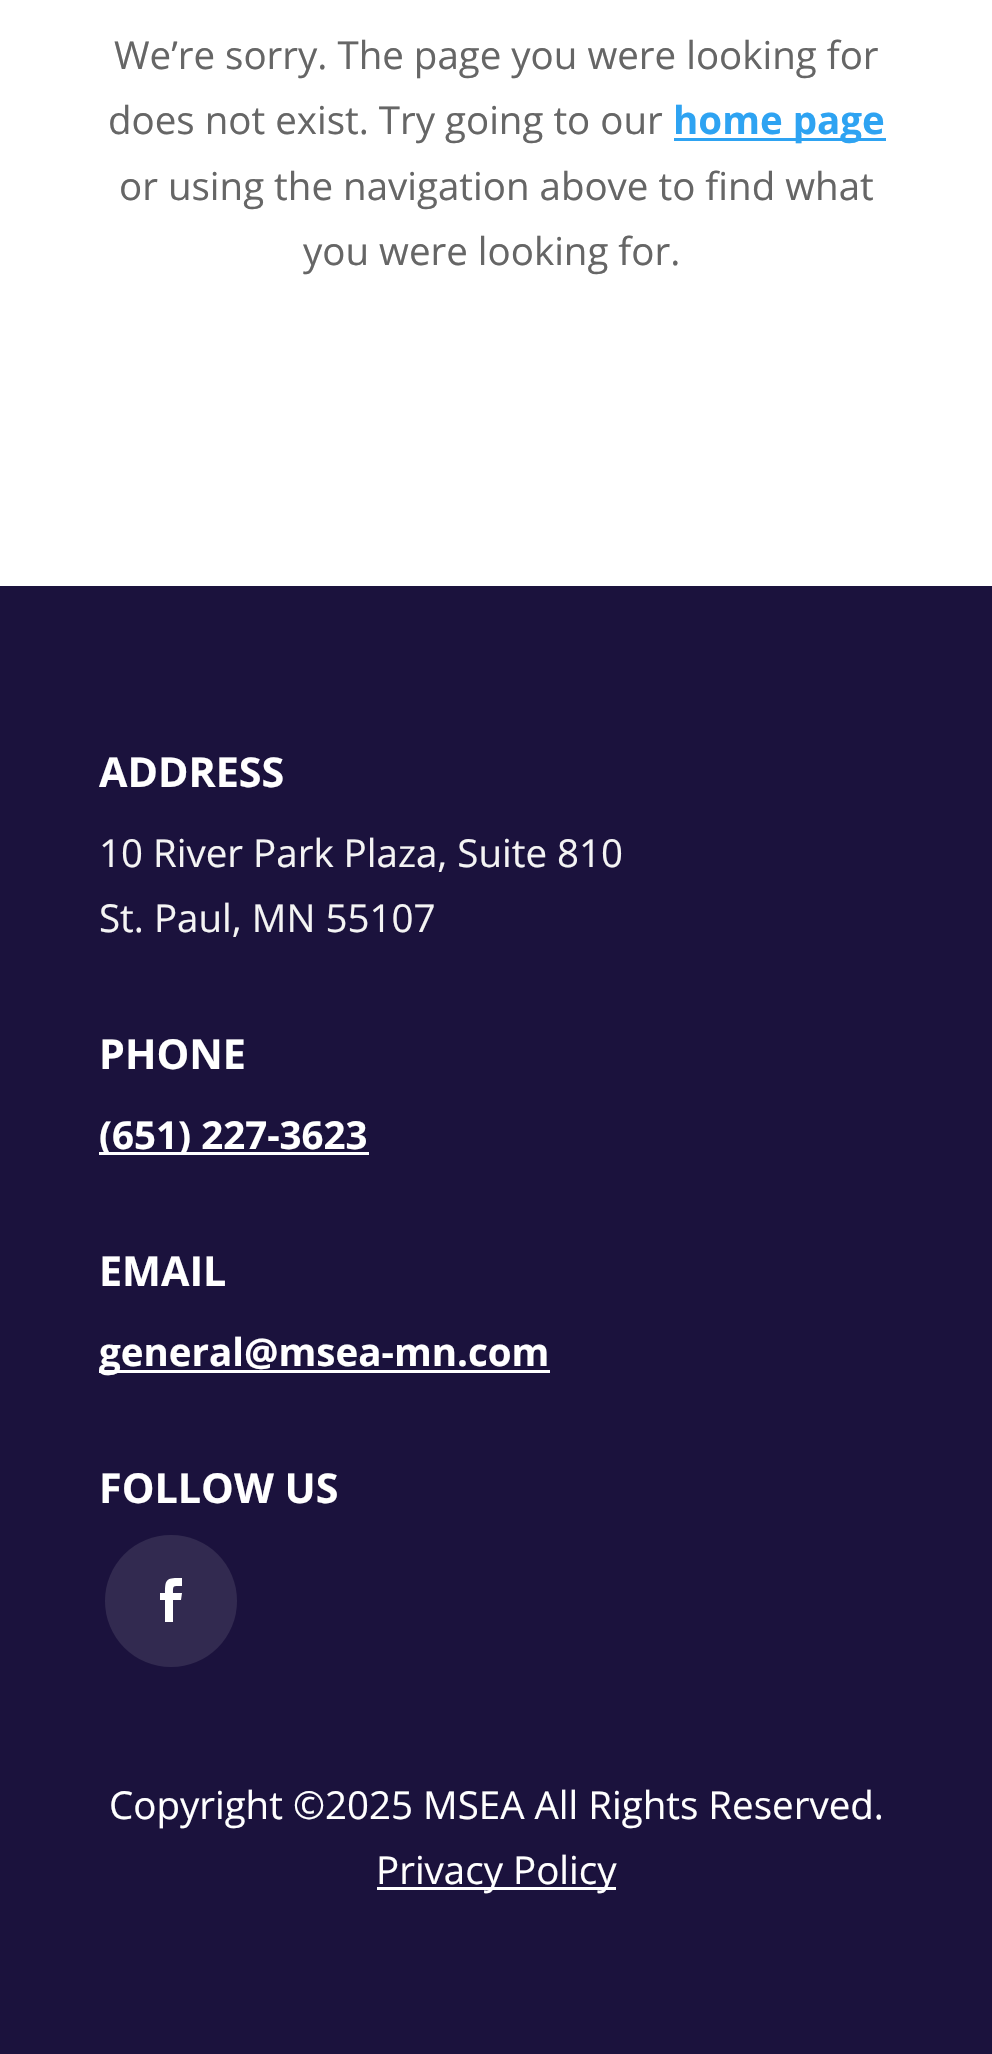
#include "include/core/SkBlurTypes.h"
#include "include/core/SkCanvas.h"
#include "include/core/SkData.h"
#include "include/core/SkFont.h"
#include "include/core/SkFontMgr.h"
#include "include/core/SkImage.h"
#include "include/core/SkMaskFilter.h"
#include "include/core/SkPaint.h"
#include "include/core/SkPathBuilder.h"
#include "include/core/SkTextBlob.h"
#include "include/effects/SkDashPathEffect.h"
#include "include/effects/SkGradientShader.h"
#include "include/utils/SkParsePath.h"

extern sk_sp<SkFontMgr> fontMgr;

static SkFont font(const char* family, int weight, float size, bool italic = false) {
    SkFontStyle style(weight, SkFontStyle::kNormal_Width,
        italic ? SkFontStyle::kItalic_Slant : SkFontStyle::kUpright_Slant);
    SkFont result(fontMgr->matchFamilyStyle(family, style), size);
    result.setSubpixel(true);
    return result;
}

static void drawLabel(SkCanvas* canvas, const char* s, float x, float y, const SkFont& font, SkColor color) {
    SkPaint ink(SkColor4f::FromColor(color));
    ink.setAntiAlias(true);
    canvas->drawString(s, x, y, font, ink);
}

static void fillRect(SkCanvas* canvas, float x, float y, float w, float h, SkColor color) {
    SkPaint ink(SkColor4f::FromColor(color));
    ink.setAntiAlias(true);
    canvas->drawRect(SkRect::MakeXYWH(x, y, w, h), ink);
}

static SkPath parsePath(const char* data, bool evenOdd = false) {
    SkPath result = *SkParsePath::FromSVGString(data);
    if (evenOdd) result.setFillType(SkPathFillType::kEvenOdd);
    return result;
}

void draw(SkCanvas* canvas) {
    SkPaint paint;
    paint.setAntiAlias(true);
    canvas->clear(0xFFFFFFFF);
    SkFont font1 = font("Open Sans", 400, 38.5f);
    drawLabel(canvas, "We’re sorry. The page you were looking for", 114, 69, font1, 0xFF666666);
    drawLabel(canvas, "does not exist. Try going to our", 108, 134, font1, 0xFF666666);
    fillRect(canvas, 674, 138, 212, 3, 0xFF2EA3F2);
    SkFont font2 = font("Open Sans", 700, 38.5f);
    drawLabel(canvas, "home page", 673, 134, font2, 0xFF2EA3F2);
    drawLabel(canvas, "or using the navigation above to find what", 119, 200, font1, 0xFF666666);
    drawLabel(canvas, "you were looking for.", 303, 265, font1, 0xFF666666);
    fillRect(canvas, 0, 586, 992, 1468, 0xFF1B123D);
    SkFont font3 = font("Open Sans", 700, 41.25f);
    drawLabel(canvas, "ADDRESS", 99, 787, font3, 0xFFFFFFFF);
    drawLabel(canvas, "10 River Park Plaza, Suite 810", 99, 867, font1, 0xFFF4F4F4);
    drawLabel(canvas, "St. Paul, MN 55107", 99, 932, font1, 0xFFF4F4F4);
    drawLabel(canvas, "PHONE", 99, 1069, font3, 0xFFFFFFFF);
    fillRect(canvas, 99, 1152, 270, 3, 0xFFFFFFFF);
    drawLabel(canvas, "(651) 227-3623", 99, 1149, font2, 0xFFFFFFFF);
    drawLabel(canvas, "EMAIL", 99, 1286, font3, 0xFFFFFFFF);
    fillRect(canvas, 99, 1370, 451, 3, 0xFFFFFFFF);
    drawLabel(canvas, "general@msea-mn.com", 99, 1366, font2, 0xFFFFFFFF);
    drawLabel(canvas, "FOLLOW US", 99, 1503, font3, 0xFFFFFFFF);
    paint.setColor(0xFF322A50);
    canvas->drawCircle(171, 1601, 66, paint);
    paint.setColor(0xFFFFFFFF);
    canvas->drawPath(parsePath("M165 1622H173V1600H181L182 1593H173C173 1585 173 1586 182 1586V1578C167 1578 165 1578 165 1593H160V1600H165Z"), paint);
    drawLabel(canvas, "Copyright ©2025 MSEA All Rights Reserved.", 109, 1819, font1, 0xFFFFFFFF);
    fillRect(canvas, 377, 1887, 239, 3, 0xFFFFFFFF);
    drawLabel(canvas, "Privacy Policy", 376, 1884, font1, 0xFFFFFFFF);
}
